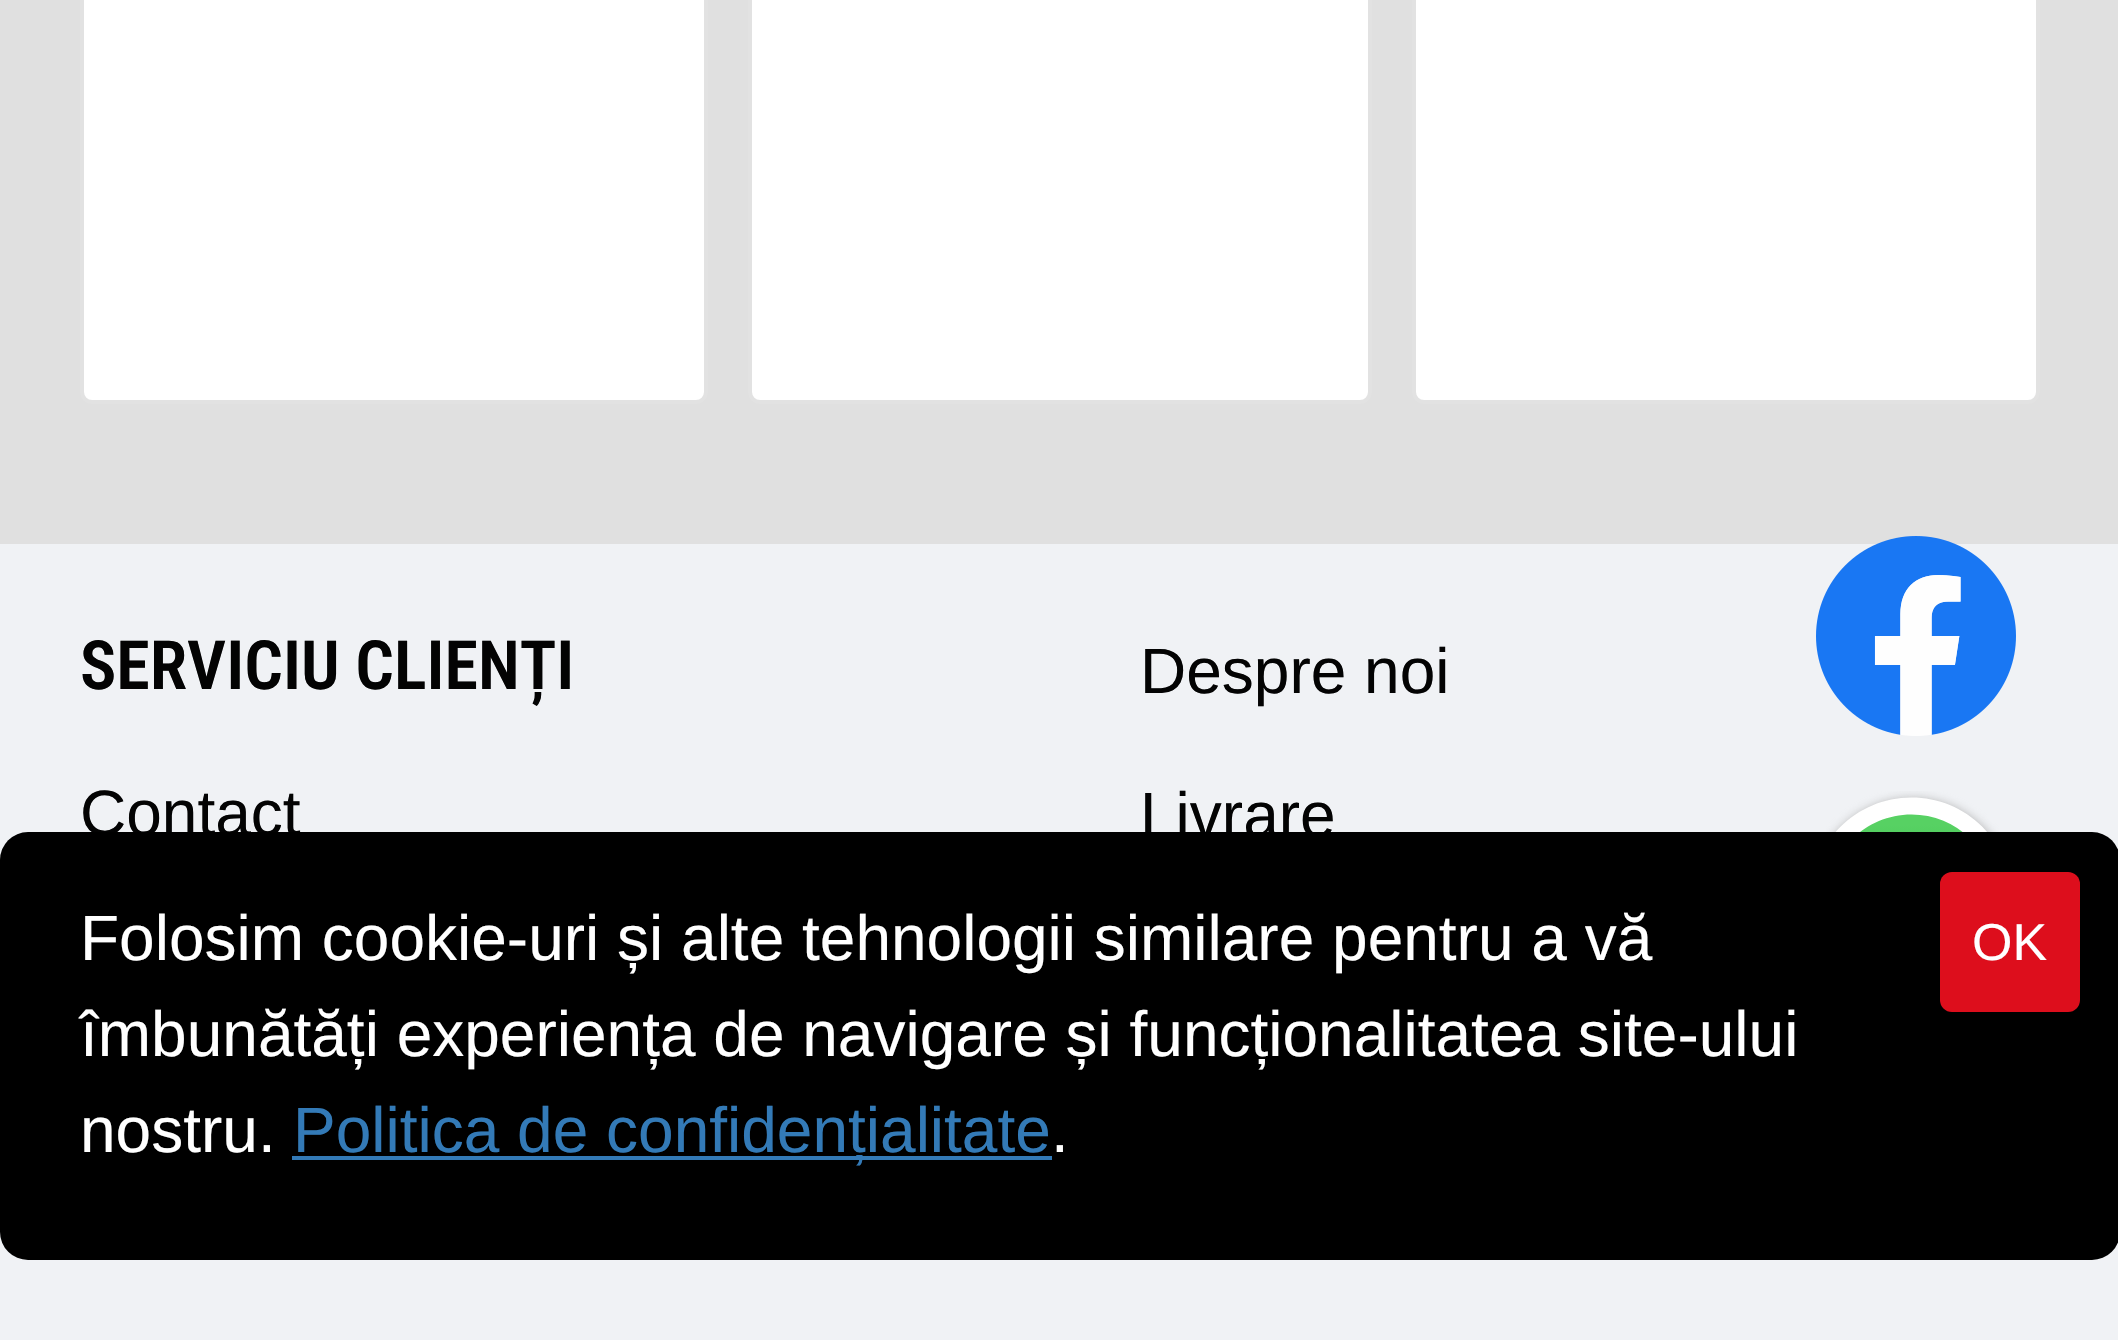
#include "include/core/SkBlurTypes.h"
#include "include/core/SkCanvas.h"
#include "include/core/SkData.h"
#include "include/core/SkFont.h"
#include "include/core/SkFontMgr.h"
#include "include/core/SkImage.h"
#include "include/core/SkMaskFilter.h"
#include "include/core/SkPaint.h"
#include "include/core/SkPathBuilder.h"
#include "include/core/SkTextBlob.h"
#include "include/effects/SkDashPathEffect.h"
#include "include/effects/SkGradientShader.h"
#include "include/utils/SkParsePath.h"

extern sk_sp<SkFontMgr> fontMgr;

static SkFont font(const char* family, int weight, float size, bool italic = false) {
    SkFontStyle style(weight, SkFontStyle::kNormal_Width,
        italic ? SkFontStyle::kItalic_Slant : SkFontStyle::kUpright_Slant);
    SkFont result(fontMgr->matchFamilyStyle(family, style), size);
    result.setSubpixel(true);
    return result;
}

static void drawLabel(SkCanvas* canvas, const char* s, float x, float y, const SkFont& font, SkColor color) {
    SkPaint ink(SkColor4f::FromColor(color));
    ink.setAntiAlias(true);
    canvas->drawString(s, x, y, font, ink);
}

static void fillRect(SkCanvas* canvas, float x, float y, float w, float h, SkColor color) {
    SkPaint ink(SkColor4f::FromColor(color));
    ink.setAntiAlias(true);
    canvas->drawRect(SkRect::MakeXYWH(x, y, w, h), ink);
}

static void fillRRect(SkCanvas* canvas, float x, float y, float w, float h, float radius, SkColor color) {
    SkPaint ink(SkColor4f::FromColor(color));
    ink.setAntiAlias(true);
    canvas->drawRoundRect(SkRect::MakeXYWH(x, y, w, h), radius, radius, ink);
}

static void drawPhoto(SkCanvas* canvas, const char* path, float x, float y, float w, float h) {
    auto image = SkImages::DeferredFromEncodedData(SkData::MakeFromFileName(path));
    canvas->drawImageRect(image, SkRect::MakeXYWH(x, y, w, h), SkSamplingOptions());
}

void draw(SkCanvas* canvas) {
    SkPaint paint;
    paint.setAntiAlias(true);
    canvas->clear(0xFFE0E0E0);
    paint.setColor(0xFFFFFFFF);
    canvas->drawRoundRect(SkRect::MakeXYWH(82, -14, 624, 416), 10, 10, paint);
    paint.setStroke(true);
    paint.setStrokeWidth(4);
    paint.setColor(0xFFE2E2E2);
    canvas->drawRoundRect(SkRect::MakeXYWH(82, -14, 624, 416), 10, 10, paint);
    paint.setStroke(false);
    paint.setColor(0xFFFFFFFF);
    canvas->drawRoundRect(SkRect::MakeXYWH(750, -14, 620, 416), 10, 10, paint);
    paint.setStroke(true);
    paint.setColor(0xFFE2E2E2);
    canvas->drawRoundRect(SkRect::MakeXYWH(750, -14, 620, 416), 10, 10, paint);
    paint.setStroke(false);
    paint.setColor(0xFFFFFFFF);
    canvas->drawRoundRect(SkRect::MakeXYWH(1414, -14, 624, 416), 10, 10, paint);
    paint.setStroke(true);
    paint.setColor(0xFFE2E2E2);
    canvas->drawRoundRect(SkRect::MakeXYWH(1414, -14, 624, 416), 10, 10, paint);
    fillRect(canvas, 0, 544, 2118, 796, 0xFFF0F2F5);
    SkFont font1 = font("Roboto Condensed", 600, 68);
    drawLabel(canvas, "SERVICIU CLIENȚI", 80, 689, font1, 0xFF030303);
    SkFont font2 = font("Liberation Sans", 400, 64);
    drawLabel(canvas, "Contact", 80, 835, font2, 0xFF030303);
    drawLabel(canvas, "Despre noi", 1140, 693, font2, 0xFF030303);
    drawLabel(canvas, "Livrare", 1140, 837, font2, 0xFF030303);
    drawPhoto(canvas, "assets/img1.png", 1816, 536, 200, 200);
    drawPhoto(canvas, "assets/img2.png", 1826, 791, 173, 41);
    fillRRect(canvas, 0, 832, 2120, 428, 28, 0xFF000000);
    drawLabel(canvas, "Folosim cookie-uri și alte tehnologii similare pentru a vă", 80, 960, font2, 0xFFFFFFFF);
    drawLabel(canvas, "îmbunătăți experiența de navigare și funcționalitatea site-ului", 80, 1056, font2, 0xFFFFFFFF);
    drawLabel(canvas, "nostru.", 80, 1152, font2, 0xFFFFFFFF);
    fillRect(canvas, 292, 1156, 760, 4, 0xFF337AB7);
    drawLabel(canvas, "Politica de confidențialitate", 293, 1152, font2, 0xFF337AB7);
    drawLabel(canvas, ".", 1051, 1152, font2, 0xFFFFFFFF);
    fillRRect(canvas, 1940, 872, 140, 140, 12, 0xFFDD0E1C);
    SkFont font3 = font("Liberation Sans", 400, 52);
    drawLabel(canvas, "OK", 1972, 960, font3, 0xFFFFFFFF);
}
